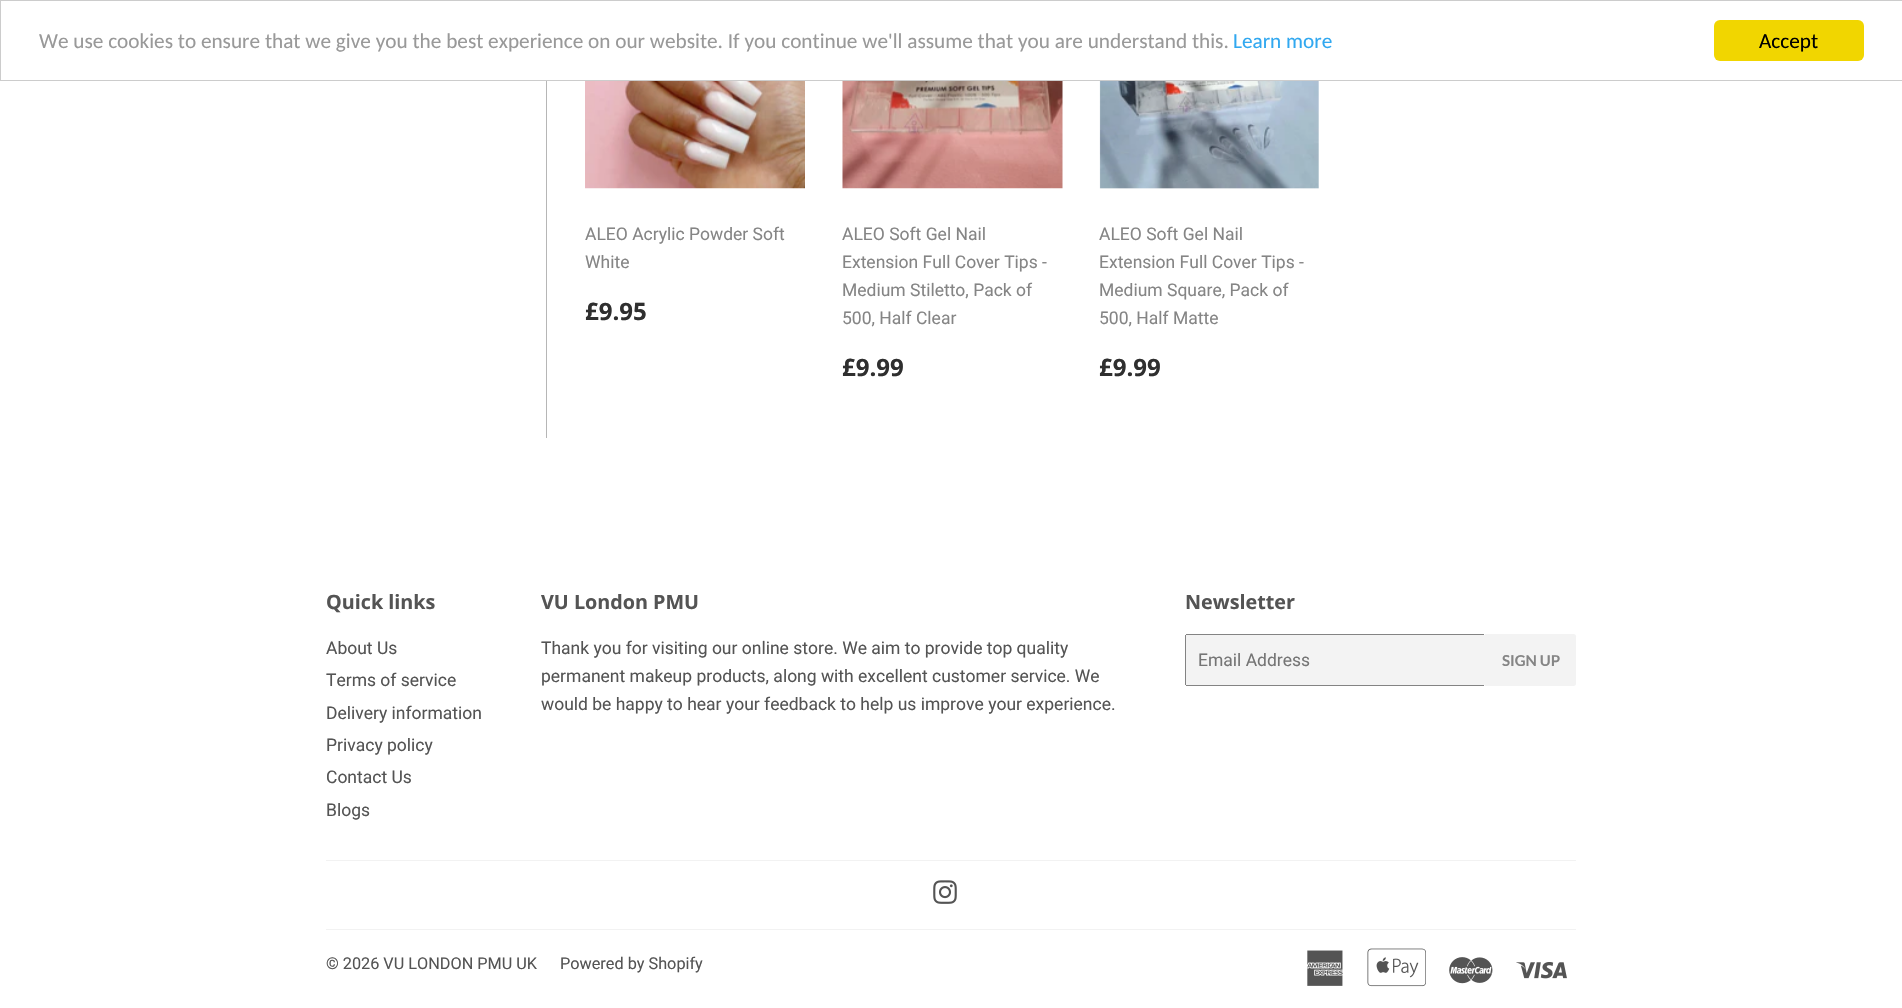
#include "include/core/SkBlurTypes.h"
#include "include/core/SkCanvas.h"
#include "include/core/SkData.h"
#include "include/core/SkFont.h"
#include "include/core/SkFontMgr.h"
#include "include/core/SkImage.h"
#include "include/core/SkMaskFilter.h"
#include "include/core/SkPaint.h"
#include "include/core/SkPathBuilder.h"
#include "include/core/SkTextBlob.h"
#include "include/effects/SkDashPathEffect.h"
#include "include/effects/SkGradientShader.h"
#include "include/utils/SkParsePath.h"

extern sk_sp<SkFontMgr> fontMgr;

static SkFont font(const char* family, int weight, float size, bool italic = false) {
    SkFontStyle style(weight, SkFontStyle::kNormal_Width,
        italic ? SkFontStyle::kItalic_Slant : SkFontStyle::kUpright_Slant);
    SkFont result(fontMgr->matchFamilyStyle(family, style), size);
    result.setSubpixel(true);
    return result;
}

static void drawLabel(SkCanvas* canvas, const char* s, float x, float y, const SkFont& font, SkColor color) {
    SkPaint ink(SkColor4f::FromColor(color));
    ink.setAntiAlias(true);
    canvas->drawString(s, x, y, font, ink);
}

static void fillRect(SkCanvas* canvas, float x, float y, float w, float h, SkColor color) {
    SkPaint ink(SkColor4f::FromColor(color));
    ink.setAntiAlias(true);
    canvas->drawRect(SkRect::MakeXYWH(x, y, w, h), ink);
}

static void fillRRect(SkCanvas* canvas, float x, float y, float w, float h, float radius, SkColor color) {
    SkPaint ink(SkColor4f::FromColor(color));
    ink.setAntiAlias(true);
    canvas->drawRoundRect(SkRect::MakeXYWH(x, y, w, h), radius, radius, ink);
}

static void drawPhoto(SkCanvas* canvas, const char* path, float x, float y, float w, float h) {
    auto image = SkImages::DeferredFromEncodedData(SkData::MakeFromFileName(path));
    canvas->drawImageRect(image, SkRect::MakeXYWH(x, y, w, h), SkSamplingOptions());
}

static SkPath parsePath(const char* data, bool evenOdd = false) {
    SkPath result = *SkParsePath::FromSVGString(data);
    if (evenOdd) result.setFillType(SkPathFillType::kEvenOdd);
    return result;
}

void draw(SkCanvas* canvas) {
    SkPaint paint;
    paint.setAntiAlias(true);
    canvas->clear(0xFFFFFFFF);
    paint.setStroke(true);
    paint.setStrokeWidth(1);
    paint.setColor(0xFFCCCCCC);
    canvas->drawRect(SkRect::MakeXYWH(0.5f, 0.5f, 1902, 80), paint);
    SkFont font1 = font("Carlito", 400, 21.25f);
    drawLabel(canvas, "We use cookies to ensure that we give you the best experience on our website. If you continue we'll assume that you are understand this.", 39, 48, font1, 0xFF999999);
    drawLabel(canvas, "Learn more", 1233, 48, font1, 0xFF31A8F0);
    fillRRect(canvas, 1714, 20, 150, 41, 6, 0xFFF1D600);
    drawLabel(canvas, "Accept", 1759, 48, font1, 0xFF000000);
    fillRect(canvas, 546, 81, 1, 357, 0xFFB6B6B6);
    drawPhoto(canvas, "assets/img1.png", 585, 81, 220, 108);
    SkFont font2 = font("Roboto", 400, 17.5f);
    drawLabel(canvas, "ALEO Acrylic Powder Soft", 585, 240, font2, 0xFF858585);
    drawLabel(canvas, "White", 585, 268, font2, 0xFF858585);
    SkFont font3 = font("Open Sans", 700, 24);
    drawLabel(canvas, "£9.95", 585, 320, font3, 0xFF2F2F2F);
    drawPhoto(canvas, "assets/img2.png", 842, 81, 221, 108);
    drawLabel(canvas, "ALEO Soft Gel Nail", 842, 240, font2, 0xFF858585);
    drawLabel(canvas, "Extension Full Cover Tips -", 842, 268, font2, 0xFF858585);
    drawLabel(canvas, "Medium Stiletto, Pack of", 842, 296, font2, 0xFF858585);
    drawLabel(canvas, "500, Half Clear", 842, 324, font2, 0xFF858585);
    drawLabel(canvas, "£9.99", 842, 376, font3, 0xFF2F2F2F);
    drawPhoto(canvas, "assets/img3.png", 1099, 81, 220, 108);
    drawLabel(canvas, "ALEO Soft Gel Nail", 1099, 240, font2, 0xFF858585);
    drawLabel(canvas, "Extension Full Cover Tips -", 1099, 268, font2, 0xFF858585);
    drawLabel(canvas, "Medium Square, Pack of", 1099, 296, font2, 0xFF858585);
    drawLabel(canvas, "500, Half Matte", 1099, 324, font2, 0xFF858585);
    drawLabel(canvas, "£9.99", 1099, 376, font3, 0xFF2F2F2F);
    SkFont font4 = font("Open Sans", 700, 19.75f);
    drawLabel(canvas, "Quick links", 326, 609, font4, 0xFF545454);
    drawLabel(canvas, "About Us", 326, 654, font2, 0xFF545454);
    drawLabel(canvas, "Terms of service", 326, 686, font2, 0xFF545454);
    drawLabel(canvas, "Delivery information", 326, 719, font2, 0xFF545454);
    drawLabel(canvas, "Privacy policy", 326, 751, font2, 0xFF545454);
    drawLabel(canvas, "Contact Us", 326, 783, font2, 0xFF545454);
    drawLabel(canvas, "Blogs", 326, 816, font2, 0xFF545454);
    drawLabel(canvas, "VU London PMU", 541, 609, font4, 0xFF545454);
    drawLabel(canvas, "Thank you for visiting our online store. We aim to provide top quality", 541, 654, font2, 0xFF545454);
    drawLabel(canvas, "permanent makeup products, along with excellent customer service. We", 541, 682, font2, 0xFF545454);
    drawLabel(canvas, "would be happy to hear your feedback to help us improve your experience.", 541, 710, font2, 0xFF545454);
    drawLabel(canvas, "Newsletter", 1185, 609, font4, 0xFF545454);
    fillRRect(canvas, 1185, 634, 300, 52, 2.5f, 0xFFF3F3F3);
    fillRect(canvas, 1186, 634, 298, 1, 0xFF838383);
    fillRect(canvas, 1186, 685, 298, 1, 0xFF838383);
    fillRect(canvas, 1185, 635, 1, 50, 0xFF838383);
    drawLabel(canvas, "Email Address", 1198, 666, font2, 0xFF757575);
    paint.setStroke(false);
    paint.setColor(0xFFF3F3F3);
    canvas->drawPath(parsePath("M1485 634H1573.5C1575 634 1576 635 1576 636.5V683.5C1576 685 1575 686 1573.5 686H1485Z"), paint);
    SkFont font5 = font("Lato", 700, 15);
    drawLabel(canvas, "SIGN UP", 1502, 666, font5, 0xFF858585);
    fillRect(canvas, 326, 860, 1250, 1, 0xFFF2F2F2);
    drawPhoto(canvas, "assets/img4.png", 933, 880, 24, 24);
    fillRect(canvas, 326, 929, 1250, 1, 0xFFF2F2F2);
    SkFont font6 = font("Roboto", 400, 16.25f);
    drawLabel(canvas, "© 2026 VU LONDON PMU UK", 326, 969, font6, 0xFF545454);
    drawLabel(canvas, "Powered by Shopify", 560, 969, font6, 0xFF545454);
    drawPhoto(canvas, "assets/img5.png", 1307, 950, 36, 36);
    drawPhoto(canvas, "assets/img6.png", 1367, 948, 59, 39);
    drawPhoto(canvas, "assets/img7.png", 1449, 957, 44, 27);
    drawPhoto(canvas, "assets/img8.png", 1516, 962, 51, 17);
}
